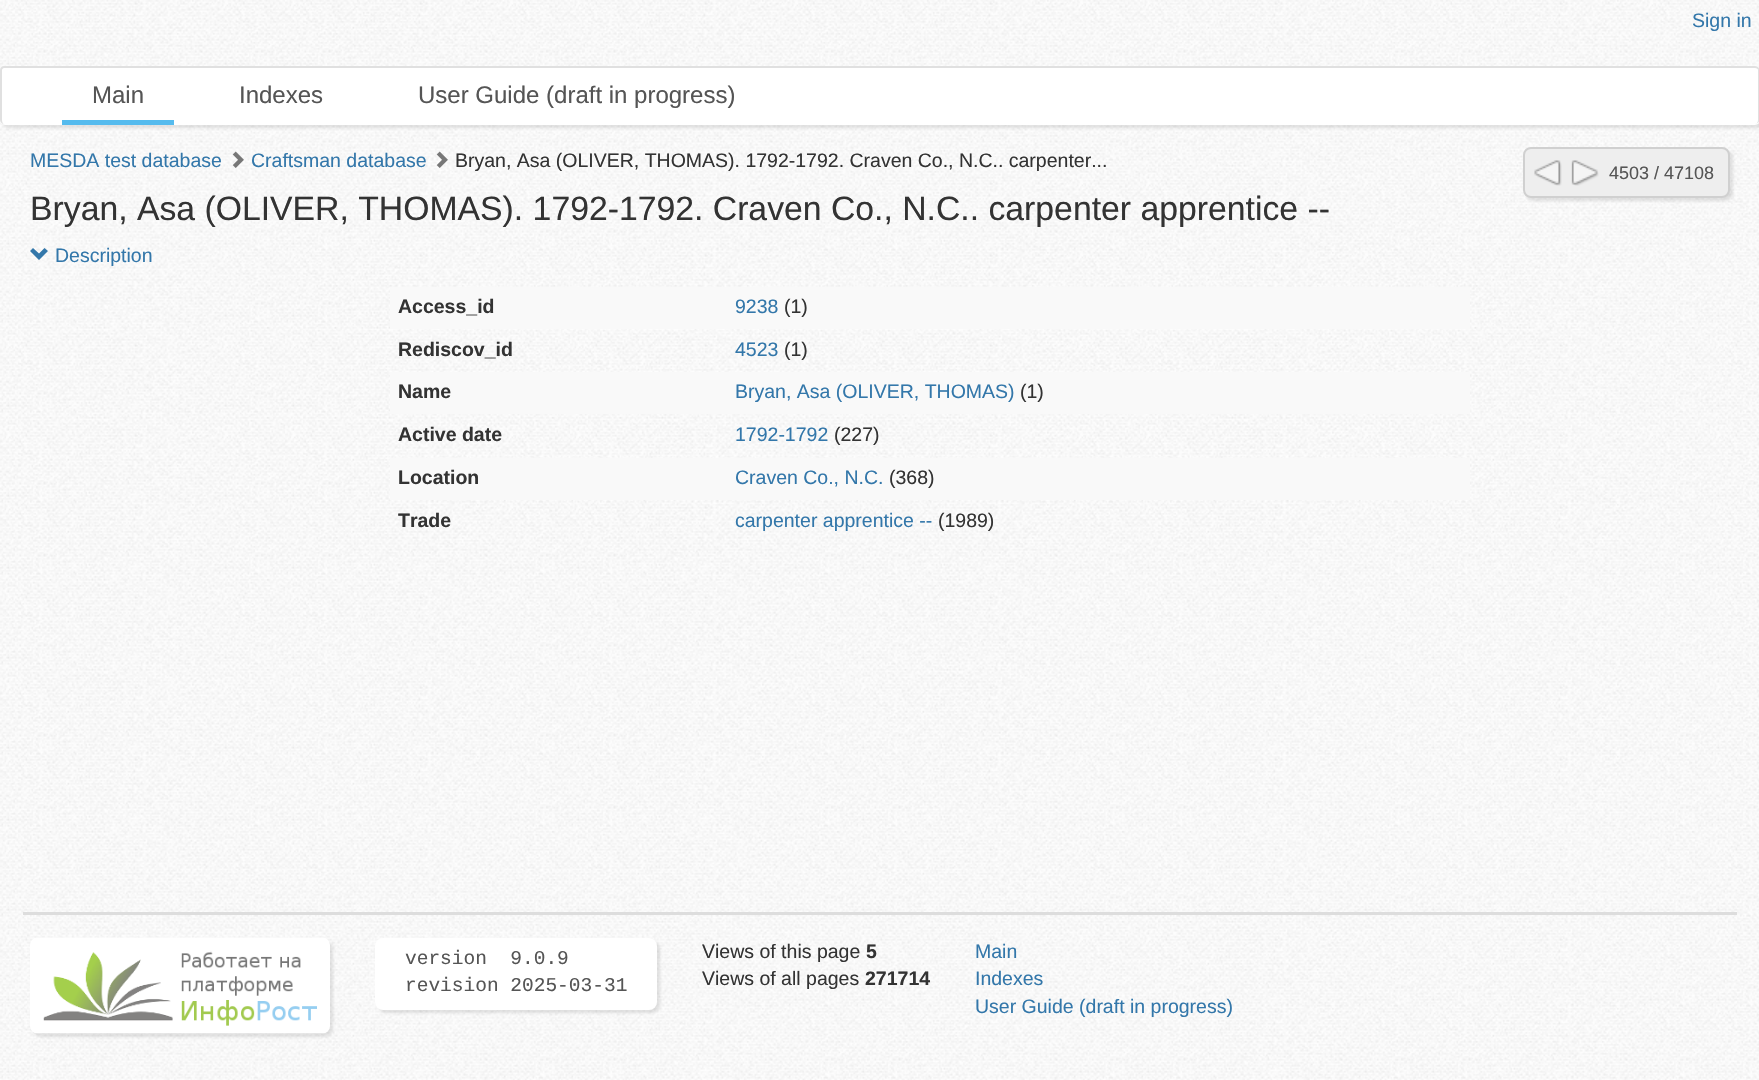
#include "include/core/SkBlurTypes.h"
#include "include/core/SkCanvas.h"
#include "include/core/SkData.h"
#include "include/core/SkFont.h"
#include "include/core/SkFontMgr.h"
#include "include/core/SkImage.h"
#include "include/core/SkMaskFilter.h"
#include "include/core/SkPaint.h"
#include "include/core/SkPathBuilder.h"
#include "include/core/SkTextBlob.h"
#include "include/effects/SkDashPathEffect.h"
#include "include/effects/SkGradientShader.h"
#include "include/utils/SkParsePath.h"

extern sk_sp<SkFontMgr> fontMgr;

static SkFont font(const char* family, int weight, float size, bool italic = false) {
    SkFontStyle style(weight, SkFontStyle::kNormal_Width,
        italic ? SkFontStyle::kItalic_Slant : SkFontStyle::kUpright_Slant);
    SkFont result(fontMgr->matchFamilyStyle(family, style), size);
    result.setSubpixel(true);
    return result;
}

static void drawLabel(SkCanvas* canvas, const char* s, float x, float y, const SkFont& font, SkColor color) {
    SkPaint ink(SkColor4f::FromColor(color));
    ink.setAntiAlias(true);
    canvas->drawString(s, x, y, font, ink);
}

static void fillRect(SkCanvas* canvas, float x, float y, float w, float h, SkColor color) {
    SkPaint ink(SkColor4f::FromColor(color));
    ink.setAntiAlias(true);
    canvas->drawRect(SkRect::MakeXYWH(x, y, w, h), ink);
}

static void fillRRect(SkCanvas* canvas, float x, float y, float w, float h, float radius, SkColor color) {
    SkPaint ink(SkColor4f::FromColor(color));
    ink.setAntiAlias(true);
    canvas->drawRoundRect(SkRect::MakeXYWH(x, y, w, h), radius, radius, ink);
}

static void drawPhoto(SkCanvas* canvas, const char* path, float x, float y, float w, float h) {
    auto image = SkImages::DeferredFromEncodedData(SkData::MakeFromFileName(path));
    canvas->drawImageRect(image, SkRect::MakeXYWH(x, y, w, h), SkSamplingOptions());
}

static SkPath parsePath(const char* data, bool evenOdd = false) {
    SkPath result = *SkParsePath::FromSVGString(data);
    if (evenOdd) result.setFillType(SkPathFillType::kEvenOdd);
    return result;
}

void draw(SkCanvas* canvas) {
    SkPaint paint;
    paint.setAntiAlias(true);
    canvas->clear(0xFFFFFFFF);
    drawPhoto(canvas, "assets/img1.png", 0, 0, 1759, 1080);
    SkFont font1 = font("Liberation Sans", 400, 19.5f);
    drawLabel(canvas, "Sign in", 1692, 27, font1, 0xFF3377AA);
    paint.setColor(0x1A000000);
    paint.setMaskFilter(SkMaskFilter::MakeBlur(kNormal_SkBlurStyle, 1.5f));
    canvas->drawRoundRect(SkRect::MakeXYWH(3, 69, 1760, 59), 5, 5, paint);
    paint.setMaskFilter(nullptr);
    fillRRect(canvas, 0, 66, 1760, 59, 5, 0xFFFFFFFF);
    paint.setColor(0xFFE0E0E0);
    canvas->drawPath(parsePath("M4 66H1755C1757 66 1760 68 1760 70V120C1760 122 1757 124 1755 124H4C2 124 0 122 0 120V70C0 68 2 66 4 66ZM4 68H1755C1757 68 1758 69 1758 70V120C1758 122 1757 124 1755 124H4C3 124 2 122 2 120V70C2 69 3 68 4 68Z", true), paint);
    fillRect(canvas, 62, 120, 112, 5, 0xFF55BBEE);
    SkFont font2 = font("Liberation Sans", 400, 24);
    drawLabel(canvas, "Main", 92, 103, font2, 0xFF555555);
    drawLabel(canvas, "Indexes", 239, 103, font2, 0xFF555555);
    drawLabel(canvas, "User Guide (draft in progress)", 418, 103, font2, 0xFF555555);
    drawLabel(canvas, "MESDA test database", 30, 167, font1, 0xFF3377AA);
    drawPhoto(canvas, "assets/img2.png", 232, 151, 12, 17);
    drawLabel(canvas, "Craftsman database", 251, 167, font1, 0xFF3377AA);
    drawPhoto(canvas, "assets/img3.png", 436, 151, 12, 17);
    drawLabel(canvas, "Bryan, Asa (OLIVER, THOMAS). 1792-1792. Craven Co., N.C.. carpenter...", 455, 167, font1, 0xFF333333);
    paint.setColor(0x1A000000);
    paint.setMaskFilter(SkMaskFilter::MakeBlur(kNormal_SkBlurStyle, 1.5f));
    canvas->drawRoundRect(SkRect::MakeXYWH(1526, 150, 207, 51), 8, 8, paint);
    paint.setMaskFilter(nullptr);
    paint.setColor(0xFFEEEEEE);
    canvas->drawRoundRect(SkRect::MakeXYWH(1524, 148, 205, 49), 7, 7, paint);
    paint.setStroke(true);
    paint.setStrokeWidth(2);
    paint.setColor(0xFFD0D0D0);
    canvas->drawRoundRect(SkRect::MakeXYWH(1524, 148, 205, 49), 7, 7, paint);
    drawPhoto(canvas, "assets/img4.png", 1534, 160, 28, 26);
    drawPhoto(canvas, "assets/img5.png", 1571, 160, 28, 26);
    SkFont font3 = font("Liberation Sans", 400, 18);
    drawLabel(canvas, "4503 / 47108", 1609, 179, font3, 0xFF555555);
    SkFont font4 = font("Liberation Sans", 400, 33.75f);
    drawLabel(canvas, "Bryan, Asa (OLIVER, THOMAS). 1792-1792. Craven Co., N.C.. carpenter apprentice --", 30, 220, font4, 0xFF333333);
    paint.setStroke(false);
    paint.setColor(0xFF3377AA);
    canvas->drawPath(parsePath("M48 251L39 260L30 251L33 248L39 253.5L44.5 248Z"), paint);
    drawLabel(canvas, "Description", 55, 262, font1, 0xFF3377AA);
    fillRect(canvas, 390, 287, 1080, 42, 0xFFF9F9F9);
    SkFont font5 = font("Liberation Sans", 700, 19.5f);
    drawLabel(canvas, "Access_id", 398, 313, font5, 0xFF333333);
    drawLabel(canvas, "9238", 735, 313, font1, 0xFF3377AA);
    drawLabel(canvas, "(1)", 784, 313, font1, 0xFF333333);
    drawLabel(canvas, "Rediscov_id", 398, 356, font5, 0xFF333333);
    drawLabel(canvas, "4523", 735, 356, font1, 0xFF3377AA);
    drawLabel(canvas, "(1)", 784, 356, font1, 0xFF333333);
    fillRect(canvas, 390, 372, 1080, 42, 0xFFF9F9F9);
    drawLabel(canvas, "Name", 398, 398, font5, 0xFF333333);
    drawLabel(canvas, "Bryan, Asa (OLIVER, THOMAS)", 735, 398, font1, 0xFF3377AA);
    drawLabel(canvas, "(1)", 1020, 398, font1, 0xFF333333);
    drawLabel(canvas, "Active date", 398, 441, font5, 0xFF333333);
    drawLabel(canvas, "1792-1792", 735, 441, font1, 0xFF3377AA);
    drawLabel(canvas, "(227)", 834, 441, font1, 0xFF333333);
    fillRect(canvas, 390, 458, 1080, 42, 0xFFF9F9F9);
    drawLabel(canvas, "Location", 398, 484, font5, 0xFF333333);
    drawLabel(canvas, "Craven Co., N.C.", 735, 484, font1, 0xFF3377AA);
    drawLabel(canvas, "(368)", 889, 484, font1, 0xFF333333);
    drawLabel(canvas, "Trade", 398, 527, font5, 0xFF333333);
    drawLabel(canvas, "carpenter apprentice --", 735, 527, font1, 0xFF3377AA);
    drawLabel(canvas, "(1989)", 938, 527, font1, 0xFF333333);
    fillRect(canvas, 23, 912, 1714, 3, 0xFFDDDDDD);
    paint.setColor(0x1A000000);
    paint.setMaskFilter(SkMaskFilter::MakeBlur(kNormal_SkBlurStyle, 1.5f));
    canvas->drawRoundRect(SkRect::MakeXYWH(33, 941, 300, 96), 8, 8, paint);
    paint.setMaskFilter(nullptr);
    drawPhoto(canvas, "assets/img6.png", 30, 937, 300, 97);
    paint.setMaskFilter(SkMaskFilter::MakeBlur(kNormal_SkBlurStyle, 1.5f));
    canvas->drawRoundRect(SkRect::MakeXYWH(378, 941, 282, 72), 8, 8, paint);
    paint.setMaskFilter(nullptr);
    fillRRect(canvas, 375, 938, 282, 72, 8, 0xFFFFFFFF);
    SkFont font6 = font("Liberation Mono", 400, 19.5f);
    drawLabel(canvas, "version  9.0.9", 405, 964, font6, 0xFF555555);
    drawLabel(canvas, "revision 2025-03-31", 405, 991, font6, 0xFF555555);
    drawLabel(canvas, "Views of this page", 702, 958, font1, 0xFF333333);
    drawLabel(canvas, "5", 866, 958, font5, 0xFF333333);
    drawLabel(canvas, "Views of all pages", 702, 985, font1, 0xFF333333);
    drawLabel(canvas, "271714", 865, 985, font5, 0xFF333333);
    drawLabel(canvas, "Main", 975, 958, font1, 0xFF3377AA);
    drawLabel(canvas, "Indexes", 975, 985, font1, 0xFF3377AA);
    drawLabel(canvas, "User Guide (draft in progress)", 975, 1013, font1, 0xFF3377AA);
}
